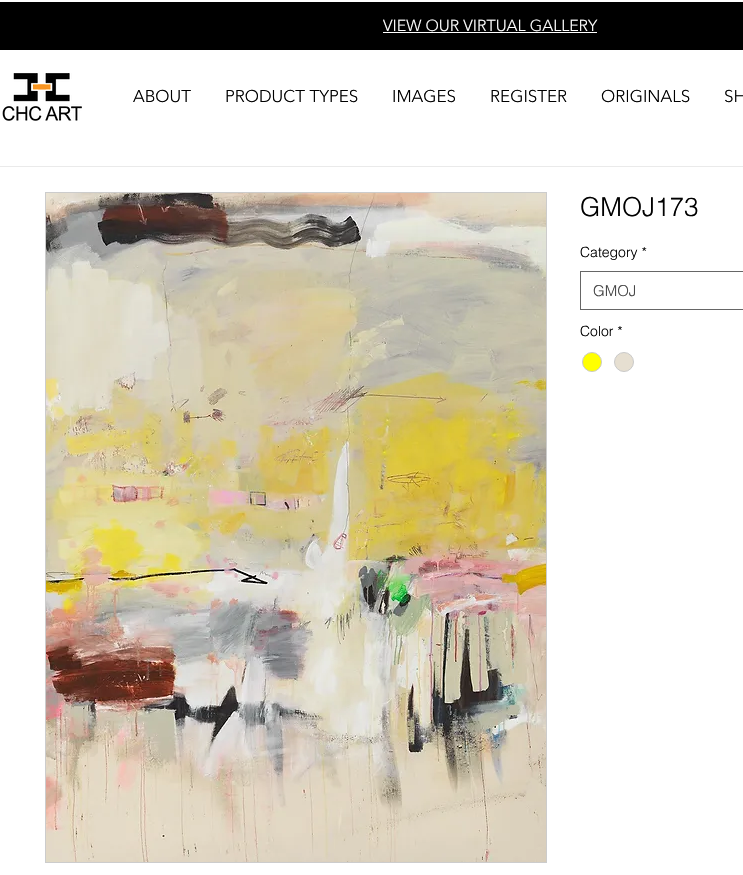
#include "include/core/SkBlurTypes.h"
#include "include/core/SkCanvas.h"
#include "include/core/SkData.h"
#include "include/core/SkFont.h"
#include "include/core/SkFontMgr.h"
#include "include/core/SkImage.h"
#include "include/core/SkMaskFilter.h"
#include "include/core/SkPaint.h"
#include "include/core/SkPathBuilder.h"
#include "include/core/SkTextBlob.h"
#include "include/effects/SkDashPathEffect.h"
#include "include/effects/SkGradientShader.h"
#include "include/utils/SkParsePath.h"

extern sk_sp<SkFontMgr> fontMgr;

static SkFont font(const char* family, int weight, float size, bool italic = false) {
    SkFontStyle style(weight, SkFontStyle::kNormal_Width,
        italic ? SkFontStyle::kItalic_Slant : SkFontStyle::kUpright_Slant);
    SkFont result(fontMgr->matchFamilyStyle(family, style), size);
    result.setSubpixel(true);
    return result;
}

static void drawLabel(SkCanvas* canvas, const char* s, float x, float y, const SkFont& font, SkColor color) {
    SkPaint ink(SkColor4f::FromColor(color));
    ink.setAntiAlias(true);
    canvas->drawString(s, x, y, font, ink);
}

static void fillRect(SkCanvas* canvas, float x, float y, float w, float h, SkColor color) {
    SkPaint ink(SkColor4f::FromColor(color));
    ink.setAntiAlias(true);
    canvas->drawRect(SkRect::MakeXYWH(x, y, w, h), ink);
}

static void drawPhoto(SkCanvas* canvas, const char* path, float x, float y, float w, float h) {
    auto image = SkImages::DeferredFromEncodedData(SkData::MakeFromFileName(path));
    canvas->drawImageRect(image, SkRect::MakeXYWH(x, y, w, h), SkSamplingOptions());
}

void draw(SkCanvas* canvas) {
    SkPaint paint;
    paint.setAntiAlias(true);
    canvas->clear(0xFFFFFFFF);
    fillRect(canvas, 0, 2, 743, 48, 0xFF000000);
    SkFont font1 = font("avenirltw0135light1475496", 300, 16);
    drawLabel(canvas, "VIEW OUR VIRTUAL GALLERY", 383, 31, font1, 0xFFFFFFFF);
    fillRect(canvas, 383, 32, 214, 1, 0xFFFFFFFF);
    drawPhoto(canvas, "assets/img1.png", 2, 73, 80, 48);
    SkFont font2 = font("avenirltw0135light1475496", 300, 17);
    drawLabel(canvas, "ABOUT", 133, 102, font2, 0xFF000000);
    drawLabel(canvas, "PRODUCT TYPES", 225, 102, font2, 0xFF000000);
    drawLabel(canvas, "IMAGES", 392, 102, font2, 0xFF000000);
    drawLabel(canvas, "REGISTER", 490, 102, font2, 0xFF000000);
    drawLabel(canvas, "ORIGINALS", 601, 102, font2, 0xFF000000);
    drawLabel(canvas, "SH", 724, 102, font2, 0xFF000000);
    fillRect(canvas, 0, 166, 743, 1, 0xFFEAEAEA);
    paint.setStroke(true);
    paint.setStrokeWidth(1);
    paint.setColor(0xFFCCCCCC);
    canvas->drawRect(SkRect::MakeXYWH(45.5f, 192.5f, 501, 670), paint);
    drawPhoto(canvas, "assets/img2.png", 46, 193, 500, 669);
    SkFont font3 = font("helvetica", 300, 26);
    drawLabel(canvas, "GMOJ173", 580, 216, font3, 0xFF000000);
    SkFont font4 = font("helvetica", 300, 14);
    drawLabel(canvas, "Category *", 580, 257, font4, 0xFF000000);
    paint.setColor(0xFF666666);
    canvas->drawRect(SkRect::MakeXYWH(580.5f, 271.5f, 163, 38), paint);
    SkFont font5 = font("helvetica", 300, 15);
    drawLabel(canvas, "GMOJ", 593, 296, font5, 0xFF444444);
    drawLabel(canvas, "Color *", 580, 336, font4, 0xFF000000);
    paint.setStroke(false);
    paint.setColor(0xFFFFFF00);
    canvas->drawCircle(592, 362, 9.5f, paint);
    paint.setStroke(true);
    paint.setColor(0xFFC9C9C9);
    canvas->drawCircle(592, 362, 9.5f, paint);
    paint.setStroke(false);
    paint.setColor(0xFFE6DFD1);
    canvas->drawCircle(624, 362, 9.5f, paint);
    paint.setStroke(true);
    paint.setColor(0xFFC9C9C9);
    canvas->drawCircle(624, 362, 9.5f, paint);
}
